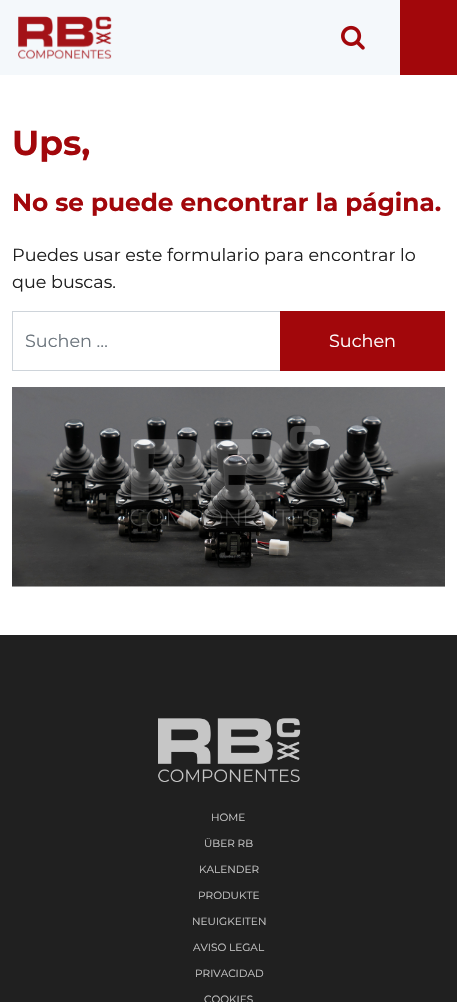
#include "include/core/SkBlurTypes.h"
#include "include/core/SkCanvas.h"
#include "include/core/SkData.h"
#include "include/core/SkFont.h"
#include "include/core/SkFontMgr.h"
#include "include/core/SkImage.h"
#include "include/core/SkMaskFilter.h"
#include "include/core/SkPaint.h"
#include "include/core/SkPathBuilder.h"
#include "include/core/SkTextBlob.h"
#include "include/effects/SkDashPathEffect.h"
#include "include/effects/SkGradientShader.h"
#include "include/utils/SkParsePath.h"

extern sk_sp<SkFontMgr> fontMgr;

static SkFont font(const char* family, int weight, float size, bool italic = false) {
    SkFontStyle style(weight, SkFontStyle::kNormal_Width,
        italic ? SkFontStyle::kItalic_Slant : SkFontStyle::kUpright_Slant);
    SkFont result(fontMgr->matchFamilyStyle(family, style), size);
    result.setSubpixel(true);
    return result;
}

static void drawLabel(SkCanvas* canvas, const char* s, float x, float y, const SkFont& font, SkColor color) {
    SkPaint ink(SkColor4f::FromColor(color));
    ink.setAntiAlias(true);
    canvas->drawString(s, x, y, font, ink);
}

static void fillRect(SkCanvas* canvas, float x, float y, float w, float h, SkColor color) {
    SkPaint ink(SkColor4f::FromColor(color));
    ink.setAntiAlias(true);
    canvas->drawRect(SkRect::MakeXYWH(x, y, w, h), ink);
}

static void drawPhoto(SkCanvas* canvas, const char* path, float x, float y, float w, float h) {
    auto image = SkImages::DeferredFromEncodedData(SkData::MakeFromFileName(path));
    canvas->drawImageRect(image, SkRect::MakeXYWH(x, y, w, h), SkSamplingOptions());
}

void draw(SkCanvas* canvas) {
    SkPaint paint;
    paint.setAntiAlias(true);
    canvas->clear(0xFFFFFFFF);
    fillRect(canvas, 0, 0, 400, 75, 0xFFF4F8FB);
    drawPhoto(canvas, "assets/img1.png", 18, 16, 94, 43);
    drawPhoto(canvas, "assets/img2.png", 341, 25, 24, 25);
    fillRect(canvas, 400, 0, 57, 75, 0xFFA2070B);
    SkFont font1 = font("Montserrat", 700, 34.5f);
    drawLabel(canvas, "Ups,", 12, 155, font1, 0xFFA2070B);
    SkFont font2 = font("Montserrat", 700, 24.75f);
    drawLabel(canvas, "No se puede encontrar la página.", 12, 211, font2, 0xFFA2070B);
    SkFont font3 = font("Montserrat", 400, 17.6f);
    drawLabel(canvas, "Puedes usar este formulario para encontrar lo", 12, 261, font3, 0xFF202020);
    drawLabel(canvas, "que buscas.", 12, 288, font3, 0xFF202020);
    paint.setStroke(true);
    paint.setStrokeWidth(1);
    paint.setColor(0xFFCED4DA);
    canvas->drawRect(SkRect::MakeXYWH(12.5f, 311.5f, 268, 59), paint);
    drawLabel(canvas, "Suchen …", 25, 347, font3, 0xFF6C757D);
    fillRect(canvas, 280, 311, 165, 60, 0xFFA2070B);
    drawLabel(canvas, "Suchen", 329, 347, font3, 0xFFFFFFFF);
    drawPhoto(canvas, "assets/img3.png", 12, 387, 433, 200);
    fillRect(canvas, 0, 635, 457, 367, 0xFF202020);
    drawPhoto(canvas, "assets/img4.png", 158, 718, 143, 64);
    SkFont font4 = font("Montserrat", 400, 10.5f);
    drawLabel(canvas, "HOME", 211, 821, font4, 0xFFC6C6C6);
    drawLabel(canvas, "ÜBER RB", 204, 847, font4, 0xFFC6C6C6);
    drawLabel(canvas, "KALENDER", 199, 873, font4, 0xFFC6C6C6);
    drawLabel(canvas, "PRODUKTE", 198, 899, font4, 0xFFC6C6C6);
    drawLabel(canvas, "NEUIGKEITEN", 192, 925, font4, 0xFFC6C6C6);
    drawLabel(canvas, "AVISO LEGAL", 193, 951, font4, 0xFFC6C6C6);
    drawLabel(canvas, "PRIVACIDAD", 195, 977, font4, 0xFFC6C6C6);
    drawLabel(canvas, "COOKIES", 204, 1003, font4, 0xFFC6C6C6);
}
